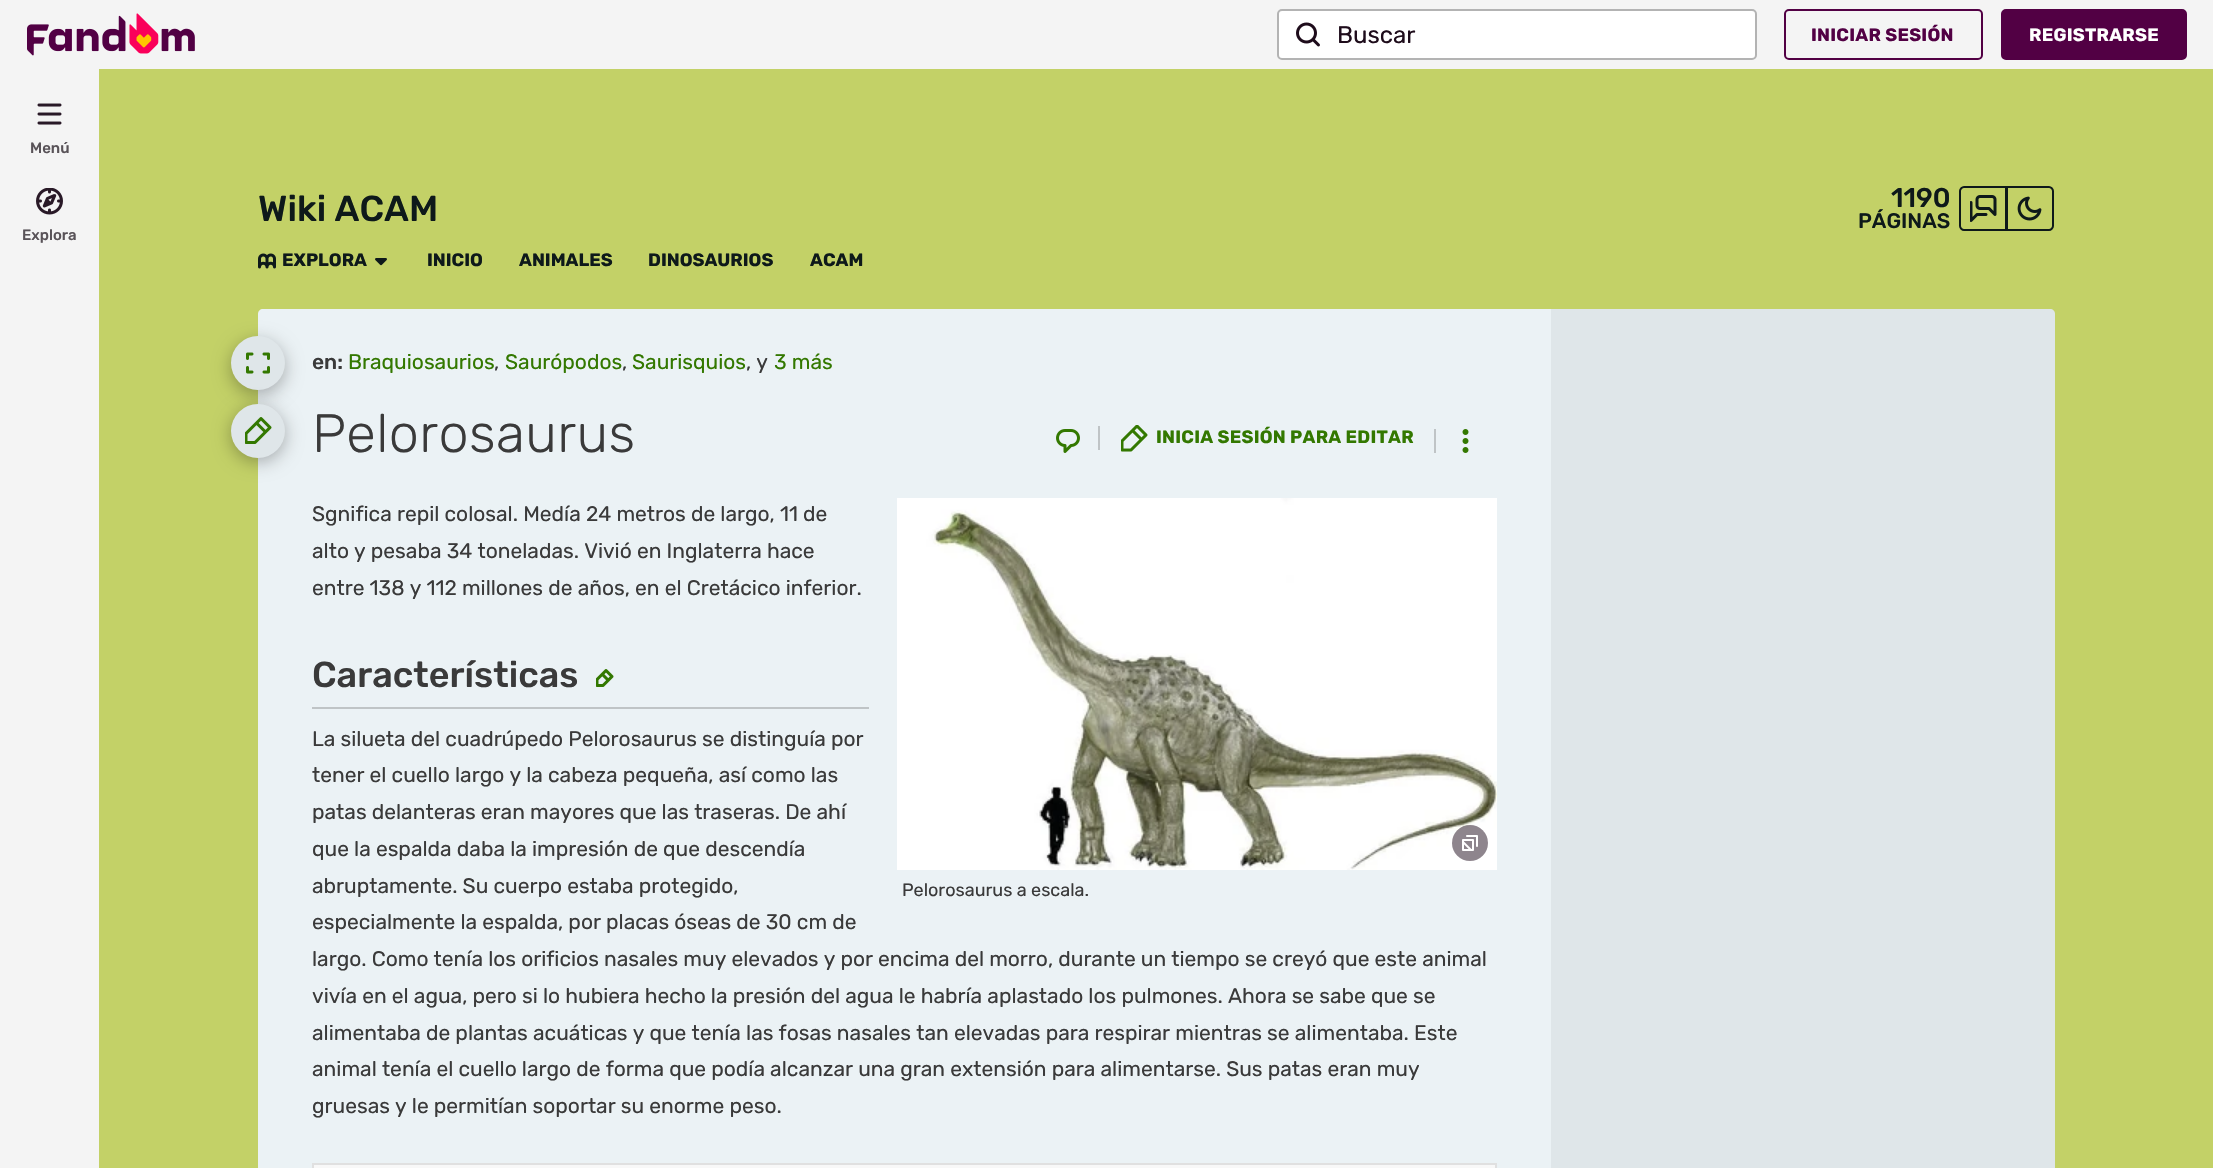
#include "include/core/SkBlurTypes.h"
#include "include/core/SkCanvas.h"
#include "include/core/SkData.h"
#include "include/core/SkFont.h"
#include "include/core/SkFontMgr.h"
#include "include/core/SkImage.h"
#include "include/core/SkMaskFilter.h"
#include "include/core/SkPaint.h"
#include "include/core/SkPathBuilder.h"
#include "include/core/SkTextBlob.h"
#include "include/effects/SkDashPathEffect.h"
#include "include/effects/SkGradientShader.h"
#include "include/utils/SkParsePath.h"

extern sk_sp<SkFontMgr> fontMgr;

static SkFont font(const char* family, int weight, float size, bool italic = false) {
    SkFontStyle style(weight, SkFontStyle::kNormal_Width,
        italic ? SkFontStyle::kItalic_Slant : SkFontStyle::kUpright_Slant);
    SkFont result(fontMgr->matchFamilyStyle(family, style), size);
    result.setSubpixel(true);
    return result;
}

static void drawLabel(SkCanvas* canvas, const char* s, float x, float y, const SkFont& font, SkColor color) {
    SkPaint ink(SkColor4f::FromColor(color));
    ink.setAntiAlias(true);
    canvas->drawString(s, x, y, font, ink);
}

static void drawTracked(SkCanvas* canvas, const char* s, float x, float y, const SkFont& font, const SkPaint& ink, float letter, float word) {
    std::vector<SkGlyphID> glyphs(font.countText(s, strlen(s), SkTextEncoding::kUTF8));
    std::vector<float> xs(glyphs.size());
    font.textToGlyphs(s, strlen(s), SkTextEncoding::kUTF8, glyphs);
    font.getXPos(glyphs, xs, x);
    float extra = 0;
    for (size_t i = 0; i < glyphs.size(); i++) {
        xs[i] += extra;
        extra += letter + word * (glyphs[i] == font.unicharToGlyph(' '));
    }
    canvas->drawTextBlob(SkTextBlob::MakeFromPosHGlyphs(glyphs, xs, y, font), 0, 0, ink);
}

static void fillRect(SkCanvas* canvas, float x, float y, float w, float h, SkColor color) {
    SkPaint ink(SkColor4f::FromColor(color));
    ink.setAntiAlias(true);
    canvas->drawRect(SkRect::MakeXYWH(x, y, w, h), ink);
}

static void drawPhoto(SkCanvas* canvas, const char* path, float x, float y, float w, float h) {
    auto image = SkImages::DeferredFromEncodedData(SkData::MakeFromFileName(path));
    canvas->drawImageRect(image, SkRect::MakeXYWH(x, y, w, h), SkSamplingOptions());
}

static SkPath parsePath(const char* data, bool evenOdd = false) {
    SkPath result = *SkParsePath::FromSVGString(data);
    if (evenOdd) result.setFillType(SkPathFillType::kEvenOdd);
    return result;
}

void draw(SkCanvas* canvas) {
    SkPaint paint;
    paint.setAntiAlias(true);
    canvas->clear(0xFFC3D167);
    fillRect(canvas, 0, 0, 2213, 69, 0xFFF4F4F4);
    drawPhoto(canvas, "assets/img1.png", 27, 13, 168, 43);
    paint.setColor(0xFFFFFFFF);
    canvas->drawRoundRect(SkRect::MakeXYWH(1278, 10, 478, 49), 4, 4, paint);
    paint.setStroke(true);
    paint.setStrokeWidth(2);
    paint.setColor(0xFFB3B3B3);
    canvas->drawRoundRect(SkRect::MakeXYWH(1278, 10, 478, 49), 4, 4, paint);
    drawPhoto(canvas, "assets/img2.png", 1296, 22, 24, 25);
    SkFont font1 = font("Rubik", 400, 24);
    drawLabel(canvas, "Buscar", 1337, 43, font1, 0xFF1E0C1B);
    paint.setColor(0xFF520044);
    canvas->drawRoundRect(SkRect::MakeXYWH(1785, 10, 197, 49), 4, 4, paint);
    SkFont font2 = font("Rubik", 700, 18);
    paint.setStroke(false);
    drawTracked(canvas, "INICIAR SESIÓN", 1811, 41, font2, paint, 0.25f, 0);
    canvas->drawRoundRect(SkRect::MakeXYWH(2002, 10, 184, 49), 4, 4, paint);
    paint.setStroke(true);
    canvas->drawRoundRect(SkRect::MakeXYWH(2002, 10, 184, 49), 4, 4, paint);
    paint.setStroke(false);
    paint.setColor(0xFFFFFFFF);
    drawTracked(canvas, "REGISTRARSE", 2029, 41, font2, paint, 0.25f, 0);
    fillRect(canvas, 0, 69, 99, 1099, 0xFFF4F4F4);
    drawPhoto(canvas, "assets/img3.png", 37, 103, 25, 22);
    SkFont font3 = font("Rubik", 500, 15);
    drawLabel(canvas, "Menú", 30, 153, font3, 0xFF595358);
    drawPhoto(canvas, "assets/img4.png", 36, 188, 27, 27);
    drawLabel(canvas, "Explora", 22, 240, font3, 0xFF595358);
    SkFont font4 = font("Rubik", 500, 36);
    drawLabel(canvas, "Wiki ACAM", 258, 221, font4, 0xFF0E191A);
    SkFont font5 = font("Rubik", 500, 27);
    drawLabel(canvas, "1190", 1891, 207, font5, 0xFF0E191A);
    SkFont font6 = font("Rubik", 500, 21);
    drawLabel(canvas, "PÁGINAS", 1858, 228, font6, 0xFF0E191A);
    paint.setStroke(true);
    paint.setColor(0xFF0E191A);
    canvas->drawPath(parsePath("M1964 187H2006V230H1964C1962 230 1960 228 1960 226V191C1960 189 1962 187 1964 187Z"), paint);
    drawPhoto(canvas, "assets/img5.png", 1970, 195, 27, 27);
    canvas->drawPath(parsePath("M2007 187H2049C2051 187 2053 189 2053 191V226C2053 228 2051 230 2049 230H2007Z"), paint);
    drawPhoto(canvas, "assets/img6.png", 2017, 196, 25, 25);
    drawPhoto(canvas, "assets/img7.png", 258, 253, 18, 16);
    drawLabel(canvas, "EXPLORA", 282, 266, font2, 0xFF0E191A);
    drawPhoto(canvas, "assets/img8.png", 375, 258, 12, 8);
    drawLabel(canvas, "INICIO", 427, 266, font2, 0xFF0E191A);
    drawLabel(canvas, "ANIMALES", 519, 266, font2, 0xFF0E191A);
    drawLabel(canvas, "DINOSAURIOS", 648, 266, font2, 0xFF0E191A);
    drawLabel(canvas, "ACAM", 810, 266, font2, 0xFF0E191A);
    paint.setStroke(false);
    paint.setColor(0xFFEBF2F5);
    canvas->drawPath(parsePath("M263 309H1551V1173H263C260 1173 258 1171 258 1168V314C258 311 260 309 263 309Z"), paint);
    paint.setColor(0x4D000000);
    paint.setMaskFilter(SkMaskFilter::MakeBlur(kNormal_SkBlurStyle, 9));
    canvas->drawRoundRect(SkRect::MakeXYWH(231, 341, 54, 54), 27, 27, paint);
    paint.setMaskFilter(nullptr);
    paint.setColor(0xFFDFE6E9);
    canvas->drawCircle(258, 363, 27, paint);
    drawPhoto(canvas, "assets/img9.png", 246, 352, 24, 22);
    paint.setColor(0x4D000000);
    paint.setMaskFilter(SkMaskFilter::MakeBlur(kNormal_SkBlurStyle, 9));
    canvas->drawRoundRect(SkRect::MakeXYWH(231, 408, 54, 54), 27, 27, paint);
    paint.setMaskFilter(nullptr);
    paint.setColor(0xFFDFE6E9);
    canvas->drawCircle(258, 431, 27, paint);
    drawPhoto(canvas, "assets/img10.png", 245, 417, 27, 27);
    drawLabel(canvas, "en:", 312, 369, font6, 0xFF3A3A3A);
    SkFont font7 = font("Rubik", 400, 21);
    drawLabel(canvas, "Braquiosaurios", 348, 369, font7, 0xFF337800);
    drawLabel(canvas, ",", 494, 369, font7, 0xFF3A3A3A);
    drawLabel(canvas, "Saurópodos", 505, 369, font7, 0xFF337800);
    drawLabel(canvas, ",", 622, 369, font7, 0xFF3A3A3A);
    drawLabel(canvas, "Saurisquios", 632, 369, font7, 0xFF337800);
    drawLabel(canvas, ", y", 746, 369, font7, 0xFF3A3A3A);
    drawLabel(canvas, "3 más", 774, 369, font7, 0xFF337800);
    SkFont font8 = font("Rubik", 300, 54);
    paint.setColor(0xFF3A3A3A);
    drawTracked(canvas, "Pelorosaurus", 312, 452, font8, paint, 0.4f, 0);
    drawPhoto(canvas, "assets/img11.png", 1056, 429, 24, 24);
    fillRect(canvas, 1098, 426, 2, 24, 0xFFBFC4C6);
    drawPhoto(canvas, "assets/img12.png", 1121, 425, 27, 27);
    paint.setColor(0xFF337800);
    drawTracked(canvas, "INICIA SESIÓN PARA EDITAR", 1156, 443, font2, paint, 0.25f, 0);
    fillRect(canvas, 1434, 429, 2, 24, 0xFFBFC4C6);
    drawPhoto(canvas, "assets/img13.png", 1462, 429, 7, 24);
    drawLabel(canvas, "Sgnifica repil colosal. Medía 24 metros de largo, 11 de", 312, 521, font7, 0xFF3A3A3A);
    drawLabel(canvas, "alto y pesaba 34 toneladas. Vivió en Inglaterra hace", 312, 558, font7, 0xFF3A3A3A);
    drawLabel(canvas, "entre 138 y 112 millones de años, en el Cretácico inferior.", 312, 595, font7, 0xFF3A3A3A);
    fillRect(canvas, 312, 707, 557, 2, 0xFFBFC4C6);
    drawLabel(canvas, "Características", 312, 687, font4, 0xFF3A3A3A);
    drawPhoto(canvas, "assets/img14.png", 596, 669, 18, 18);
    drawLabel(canvas, "La silueta del cuadrúpedo Pelorosaurus se distinguía por", 312, 746, font7, 0xFF3A3A3A);
    drawLabel(canvas, "tener el cuello largo y la cabeza pequeña, así como las", 312, 782, font7, 0xFF3A3A3A);
    drawLabel(canvas, "patas delanteras eran mayores que las traseras. De ahí", 312, 819, font7, 0xFF3A3A3A);
    drawLabel(canvas, "que la espalda daba la impresión de que descendía", 312, 856, font7, 0xFF3A3A3A);
    drawLabel(canvas, "abruptamente. Su cuerpo estaba protegido,", 312, 893, font7, 0xFF3A3A3A);
    drawLabel(canvas, "especialmente la espalda, por placas óseas de 30 cm de", 312, 929, font7, 0xFF3A3A3A);
    drawLabel(canvas, "largo. Como tenía los orificios nasales muy elevados y por encima del morro, durante un tiempo se creyó que este animal", 312, 966, font7, 0xFF3A3A3A);
    drawLabel(canvas, "vivía en el agua, pero si lo hubiera hecho la presión del agua le habría aplastado los pulmones. Ahora se sabe que se", 312, 1003, font7, 0xFF3A3A3A);
    drawLabel(canvas, "alimentaba de plantas acuáticas y que tenía las fosas nasales tan elevadas para respirar mientras se alimentaba. Este", 312, 1040, font7, 0xFF3A3A3A);
    drawLabel(canvas, "animal tenía el cuello largo de forma que podía alcanzar una gran extensión para alimentarse. Sus patas eran muy", 312, 1076, font7, 0xFF3A3A3A);
    drawLabel(canvas, "gruesas y le permitían soportar su enorme peso.", 312, 1113, font7, 0xFF3A3A3A);
    drawPhoto(canvas, "assets/img15.png", 897, 498, 600, 372);
    paint.setColor(0x801E0C1B);
    canvas->drawCircle(1470, 843, 18, paint);
    drawPhoto(canvas, "assets/img16.png", 1462, 835, 16, 16);
    SkFont font9 = font("Rubik", 400, 18);
    drawLabel(canvas, "Pelorosaurus a escala.", 902, 896, font9, 0xFF3A3A3A);
    paint.setColor(0xFFF8F8F8);
    canvas->drawRect(SkRect::MakeXYWH(313, 1164, 1183, 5), paint);
    paint.setStroke(true);
    paint.setColor(0xFFE0E0E0);
    canvas->drawRect(SkRect::MakeXYWH(313, 1164, 1183, 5), paint);
    paint.setStroke(false);
    paint.setColor(0xFFDFE6E9);
    canvas->drawPath(parsePath("M1551 309H2050C2053 309 2055 311 2055 314V1168C2055 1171 2053 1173 2050 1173H1551Z"), paint);
}
